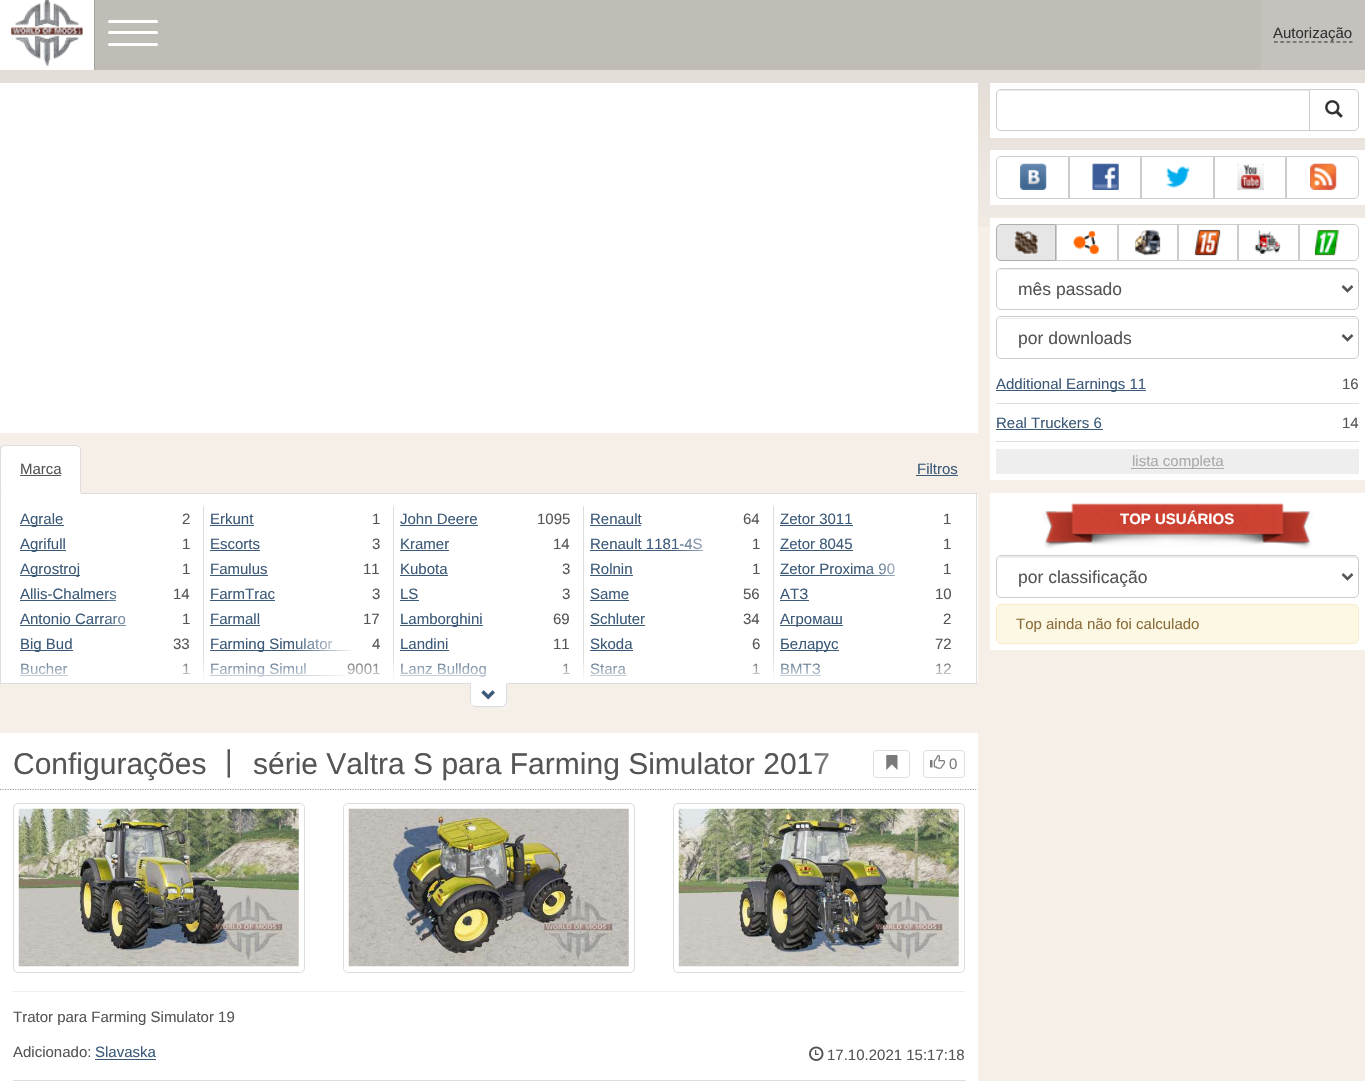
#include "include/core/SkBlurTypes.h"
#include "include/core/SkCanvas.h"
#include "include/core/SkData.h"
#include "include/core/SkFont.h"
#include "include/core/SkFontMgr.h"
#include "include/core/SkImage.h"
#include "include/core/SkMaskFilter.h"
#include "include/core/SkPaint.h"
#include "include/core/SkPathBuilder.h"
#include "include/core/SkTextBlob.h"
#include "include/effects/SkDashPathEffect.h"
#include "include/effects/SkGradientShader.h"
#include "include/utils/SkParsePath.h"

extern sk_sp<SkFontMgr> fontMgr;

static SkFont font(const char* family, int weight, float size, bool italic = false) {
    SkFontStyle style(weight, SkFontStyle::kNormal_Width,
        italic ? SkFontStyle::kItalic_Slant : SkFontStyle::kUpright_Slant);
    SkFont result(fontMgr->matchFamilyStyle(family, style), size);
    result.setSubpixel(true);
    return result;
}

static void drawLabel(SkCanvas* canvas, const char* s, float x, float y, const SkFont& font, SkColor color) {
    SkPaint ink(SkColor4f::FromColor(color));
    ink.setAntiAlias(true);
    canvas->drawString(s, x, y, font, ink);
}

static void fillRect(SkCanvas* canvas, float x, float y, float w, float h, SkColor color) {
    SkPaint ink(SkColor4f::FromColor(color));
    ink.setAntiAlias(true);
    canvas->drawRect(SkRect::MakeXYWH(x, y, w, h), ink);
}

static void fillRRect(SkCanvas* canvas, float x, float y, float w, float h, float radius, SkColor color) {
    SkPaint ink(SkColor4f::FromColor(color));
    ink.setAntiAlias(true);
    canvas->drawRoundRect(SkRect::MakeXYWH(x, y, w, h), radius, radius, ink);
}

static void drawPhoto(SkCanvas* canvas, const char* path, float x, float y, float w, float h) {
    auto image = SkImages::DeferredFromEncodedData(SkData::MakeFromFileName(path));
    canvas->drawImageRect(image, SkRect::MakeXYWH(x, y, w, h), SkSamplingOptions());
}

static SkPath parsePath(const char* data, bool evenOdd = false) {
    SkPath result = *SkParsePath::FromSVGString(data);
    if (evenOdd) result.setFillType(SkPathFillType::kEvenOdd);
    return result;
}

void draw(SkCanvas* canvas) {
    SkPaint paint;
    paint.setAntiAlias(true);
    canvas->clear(0xFFF5EFE8);
    drawPhoto(canvas, "assets/img1.png", 0, 70, 1365, 157);
    fillRect(canvas, 0, 0, 94, 70, 0xFFFFFFFF);
    fillRect(canvas, 94, 0, 1, 70, 0xFFA5A29D);
    drawPhoto(canvas, "assets/img2.png", 11, 0, 72, 67);
    fillRect(canvas, 95, 0, 1166, 70, 0xFFC0BCB6);
    fillRRect(canvas, 108, 20, 50, 3, 1.5f, 0xFFFFFFFF);
    fillRRect(canvas, 108, 31, 50, 3, 1.5f, 0xFFFFFFFF);
    fillRRect(canvas, 108, 43, 50, 3, 1.5f, 0xFFFFFFFF);
    fillRect(canvas, 1261, 0, 104, 70, 0xFFC5C2BE);
    paint.setStroke(true);
    paint.setStrokeWidth(1.2f);
    paint.setColor(0xFF333333);
    paint.setPathEffect(SkDashPathEffect::Make({{3.75f, 2.5f}}, 0));
    canvas->drawPath(parsePath("M1274 42H1352.5"), paint);
    paint.setPathEffect(nullptr);
    SkFont font1 = font("Liberation Sans", 400, 15);
    drawLabel(canvas, "Autorização", 1273, 38, font1, 0xFF333333);
    fillRect(canvas, 0, 83, 978, 350, 0xFFFFFFFF);
    fillRect(canvas, 81, 493, 897, 1, 0xFFDDDDDD);
    paint.setStroke(false);
    paint.setColor(0xFFFFFFFF);
    canvas->drawPath(parsePath("M5 445H76C79 445 81 447 81 450V494H0V450C0 447 2 445 5 445Z"), paint);
    paint.setColor(0xFFDDDDDD);
    canvas->drawPath(parsePath("M5 445C4 445 2 446 1 446L2 447L5 446H76L79 447H80C79 446 78 445 76 445Z"), paint);
    canvas->drawPath(parsePath("M80 447C81 447 81 449 81 450V494L80 492V450C80 449 80 448 79 447Z"), paint);
    paint.setColor(0xFFFFFFFF);
    canvas->drawPath(parsePath("M81 494H0L2 492H80Z"), paint);
    paint.setColor(0xFFDDDDDD);
    canvas->drawPath(parsePath("M0 494L2 492H1V450C1 449 2 448 2 447L1 446C0 447 0 448 0 450Z"), paint);
    drawLabel(canvas, "Marca", 20, 474, font1, 0xFF555555);
    fillRect(canvas, 20, 475, 41, 1, 0xFF555555);
    drawLabel(canvas, "Filtros", 917, 474, font1, 0xFF3C5A78);
    fillRect(canvas, 916, 475, 42, 1, 0xFF3C5A78);
    fillRect(canvas, 1, 494, 977, 189, 0xFFFFFFFF);
    fillRect(canvas, 976, 494, 1, 189, 0xFFDDDDDD);
    fillRect(canvas, 0, 494, 1, 189, 0xFFDDDDDD);
    fillRect(canvas, 203, 506, 1, 175, 0xFFDDDDDD);
    fillRect(canvas, 20, 525, 44, 1, 0xFF3C5A78);
    drawLabel(canvas, "Agrale", 20, 524, font1, 0xFF3C5A78);
    drawLabel(canvas, "2", 182, 524, font1, 0xFF555555);
    fillRect(canvas, 20, 550, 46, 1, 0xFF3C5A78);
    drawLabel(canvas, "Agrifull", 20, 549, font1, 0xFF3C5A78);
    drawLabel(canvas, "1", 182, 549, font1, 0xFF555555);
    fillRect(canvas, 20, 575, 60, 1, 0xFF3C5A78);
    drawLabel(canvas, "Agrostroj", 20, 574, font1, 0xFF3C5A78);
    drawLabel(canvas, "1", 182, 574, font1, 0xFF555555);
    drawLabel(canvas, "Allis-Chalmers", 20, 599, font1, 0xFF3C5A78);
    fillRect(canvas, 20, 600, 96, 1, 0xFF3C5A78);
    {
        const SkColor colors[] = {0x00FFFFFF, 0xFFFFFFFF};
        const float stops[] = {0, 1};
        const SkPoint ends[] = {{103, 594}, {165, 594}};
        paint.setShader(SkGradientShader::MakeLinear(ends, colors, stops, 2, SkTileMode::kClamp));
        paint.setAlpha(255);
    }
    canvas->drawRect(SkRect::MakeXYWH(104, 591, 13, 10), paint);
    drawLabel(canvas, "14", 173, 599, font1, 0xFF555555);
    drawLabel(canvas, "Antonio Carraro", 20, 624, font1, 0xFF3C5A78);
    fillRect(canvas, 20, 625, 106, 1, 0xFF3C5A78);
    {
        const SkColor colors[] = {0x00FFFFFF, 0xFFFFFFFF};
        const float stops[] = {0, 1};
        const SkPoint ends[] = {{103, 619}, {165, 619}};
        paint.setShader(SkGradientShader::MakeLinear(ends, colors, stops, 2, SkTileMode::kClamp));
        paint.setAlpha(255);
    }
    canvas->drawRect(SkRect::MakeXYWH(104, 616, 22, 10), paint);
    drawLabel(canvas, "1", 182, 624, font1, 0xFF555555);
    fillRect(canvas, 20, 650, 53, 1, 0xFF3C5A78);
    drawLabel(canvas, "Big Bud", 20, 649, font1, 0xFF3C5A78);
    drawLabel(canvas, "33", 173, 649, font1, 0xFF555555);
    drawLabel(canvas, "Bucher", 20, 674, font1, 0xFF3C5A78);
    fillRect(canvas, 20, 675, 48, 1, 0xFF3C5A78);
    drawLabel(canvas, "1", 182, 674, font1, 0xFF555555);
    fillRect(canvas, 393, 506, 1, 175, 0xFFDDDDDD);
    drawLabel(canvas, "Erkunt", 210, 524, font1, 0xFF3C5A78);
    fillRect(canvas, 210, 525, 44, 1, 0xFF3C5A78);
    drawLabel(canvas, "1", 372, 524, font1, 0xFF555555);
    drawLabel(canvas, "Escorts", 210, 549, font1, 0xFF3C5A78);
    fillRect(canvas, 210, 550, 50, 1, 0xFF3C5A78);
    drawLabel(canvas, "3", 372, 549, font1, 0xFF555555);
    drawLabel(canvas, "Famulus", 210, 574, font1, 0xFF3C5A78);
    fillRect(canvas, 210, 575, 58, 1, 0xFF3C5A78);
    drawLabel(canvas, "11", 363, 574, font1, 0xFF555555);
    drawLabel(canvas, "FarmTrac", 210, 599, font1, 0xFF3C5A78);
    fillRect(canvas, 210, 600, 65, 1, 0xFF3C5A78);
    drawLabel(canvas, "3", 372, 599, font1, 0xFF555555);
    drawLabel(canvas, "Farmall", 210, 624, font1, 0xFF3C5A78);
    fillRect(canvas, 210, 625, 50, 1, 0xFF3C5A78);
    drawLabel(canvas, "17", 363, 624, font1, 0xFF555555);
    fillRect(canvas, 210, 650, 144, 1, 0xFF3C5A78);
    drawLabel(canvas, "Farming Simulator", 210, 649, font1, 0xFF3C5A78);
    {
        const SkColor colors[] = {0x00FFFFFF, 0xFFFFFFFF};
        const float stops[] = {0, 1};
        const SkPoint ends[] = {{293, 644}, {355, 644}};
        paint.setShader(SkGradientShader::MakeLinear(ends, colors, stops, 2, SkTileMode::kClamp));
        paint.setAlpha(255);
    }
    canvas->drawRect(SkRect::MakeXYWH(294, 638, 60, 13), paint);
    drawLabel(canvas, "4", 372, 649, font1, 0xFF555555);
    fillRect(canvas, 210, 675, 144, 1, 0xFF3C5A78);
    drawLabel(canvas, "Farming Simul", 210, 674, font1, 0xFF3C5A78);
    {
        const SkColor colors[] = {0x00FFFFFF, 0xFFFFFFFF};
        const float stops[] = {0, 1};
        const SkPoint ends[] = {{293, 669}, {355, 669}};
        paint.setShader(SkGradientShader::MakeLinear(ends, colors, stops, 2, SkTileMode::kClamp));
        paint.setAlpha(255);
    }
    canvas->drawRect(SkRect::MakeXYWH(294, 663, 60, 13), paint);
    drawLabel(canvas, "9001", 347, 674, font1, 0xFF555555);
    fillRect(canvas, 583, 506, 1, 175, 0xFFDDDDDD);
    drawLabel(canvas, "John Deere", 400, 524, font1, 0xFF3C5A78);
    fillRect(canvas, 400, 525, 78, 1, 0xFF3C5A78);
    drawLabel(canvas, "1095", 537, 524, font1, 0xFF555555);
    drawLabel(canvas, "Kramer", 400, 549, font1, 0xFF3C5A78);
    fillRect(canvas, 400, 550, 49, 1, 0xFF3C5A78);
    drawLabel(canvas, "14", 553, 549, font1, 0xFF555555);
    drawLabel(canvas, "Kubota", 400, 574, font1, 0xFF3C5A78);
    fillRect(canvas, 400, 575, 48, 1, 0xFF3C5A78);
    drawLabel(canvas, "3", 562, 574, font1, 0xFF555555);
    drawLabel(canvas, "LS", 400, 599, font1, 0xFF3C5A78);
    fillRect(canvas, 400, 600, 19, 1, 0xFF3C5A78);
    drawLabel(canvas, "3", 562, 599, font1, 0xFF555555);
    fillRect(canvas, 400, 625, 83, 1, 0xFF3C5A78);
    drawLabel(canvas, "Lamborghini", 400, 624, font1, 0xFF3C5A78);
    drawLabel(canvas, "69", 553, 624, font1, 0xFF555555);
    drawLabel(canvas, "Landini", 400, 649, font1, 0xFF3C5A78);
    fillRect(canvas, 400, 650, 49, 1, 0xFF3C5A78);
    drawLabel(canvas, "11", 553, 649, font1, 0xFF555555);
    fillRect(canvas, 400, 675, 86, 1, 0xFF3C5A78);
    drawLabel(canvas, "Lanz Bulldog", 400, 674, font1, 0xFF3C5A78);
    {
        const SkColor colors[] = {0x00FFFFFF, 0xFFFFFFFF};
        const float stops[] = {0, 1};
        const SkPoint ends[] = {{483, 669}, {545, 669}};
        paint.setShader(SkGradientShader::MakeLinear(ends, colors, stops, 2, SkTileMode::kClamp));
        paint.setAlpha(255);
    }
    canvas->drawRect(SkRect::MakeXYWH(484, 666, 2, 10), paint);
    drawLabel(canvas, "1", 562, 674, font1, 0xFF555555);
    fillRect(canvas, 773, 506, 1, 175, 0xFFDDDDDD);
    drawLabel(canvas, "Renault", 590, 524, font1, 0xFF3C5A78);
    fillRect(canvas, 590, 525, 51, 1, 0xFF3C5A78);
    drawLabel(canvas, "64", 743, 524, font1, 0xFF555555);
    drawLabel(canvas, "Renault 1181-4S", 590, 549, font1, 0xFF3C5A78);
    fillRect(canvas, 590, 550, 113, 1, 0xFF3C5A78);
    {
        const SkColor colors[] = {0x00FFFFFF, 0xFFFFFFFF};
        const float stops[] = {0, 1};
        const SkPoint ends[] = {{673, 544}, {735, 544}};
        paint.setShader(SkGradientShader::MakeLinear(ends, colors, stops, 2, SkTileMode::kClamp));
        paint.setAlpha(255);
    }
    canvas->drawRect(SkRect::MakeXYWH(674, 538, 29, 13), paint);
    drawLabel(canvas, "1", 752, 549, font1, 0xFF555555);
    drawLabel(canvas, "Rolnin", 590, 574, font1, 0xFF3C5A78);
    fillRect(canvas, 590, 575, 43, 1, 0xFF3C5A78);
    drawLabel(canvas, "1", 752, 574, font1, 0xFF555555);
    drawLabel(canvas, "Same", 590, 599, font1, 0xFF3C5A78);
    fillRect(canvas, 590, 600, 39, 1, 0xFF3C5A78);
    drawLabel(canvas, "56", 743, 599, font1, 0xFF555555);
    drawLabel(canvas, "Schluter", 590, 624, font1, 0xFF3C5A78);
    fillRect(canvas, 590, 625, 55, 1, 0xFF3C5A78);
    drawLabel(canvas, "34", 743, 624, font1, 0xFF555555);
    drawLabel(canvas, "Skoda", 590, 649, font1, 0xFF3C5A78);
    fillRect(canvas, 590, 650, 43, 1, 0xFF3C5A78);
    drawLabel(canvas, "6", 752, 649, font1, 0xFF555555);
    drawLabel(canvas, "Stara", 590, 674, font1, 0xFF3C5A78);
    fillRect(canvas, 590, 675, 36, 1, 0xFF3C5A78);
    drawLabel(canvas, "1", 752, 674, font1, 0xFF555555);
    drawLabel(canvas, "Zetor 3011", 780, 524, font1, 0xFF3C5A78);
    fillRect(canvas, 780, 525, 73, 1, 0xFF3C5A78);
    drawLabel(canvas, "1", 943, 524, font1, 0xFF555555);
    drawLabel(canvas, "Zetor 8045", 780, 549, font1, 0xFF3C5A78);
    fillRect(canvas, 780, 550, 73, 1, 0xFF3C5A78);
    drawLabel(canvas, "1", 943, 549, font1, 0xFF555555);
    drawLabel(canvas, "Zetor Proxima 90", 780, 574, font1, 0xFF3C5A78);
    fillRect(canvas, 780, 575, 115, 1, 0xFF3C5A78);
    {
        const SkColor colors[] = {0x00FFFFFF, 0xFFFFFFFF};
        const float stops[] = {0, 1};
        const SkPoint ends[] = {{864, 569}, {926, 569}};
        paint.setShader(SkGradientShader::MakeLinear(ends, colors, stops, 2, SkTileMode::kClamp));
        paint.setAlpha(255);
    }
    canvas->drawRect(SkRect::MakeXYWH(865, 563, 30, 13), paint);
    drawLabel(canvas, "1", 943, 574, font1, 0xFF555555);
    drawLabel(canvas, "АТЗ", 780, 599, font1, 0xFF3C5A78);
    fillRect(canvas, 780, 600, 29, 1, 0xFF3C5A78);
    drawLabel(canvas, "10", 935, 599, font1, 0xFF555555);
    fillRect(canvas, 780, 625, 63, 1, 0xFF3C5A78);
    drawLabel(canvas, "Агромаш", 780, 624, font1, 0xFF3C5A78);
    drawLabel(canvas, "2", 943, 624, font1, 0xFF555555);
    fillRect(canvas, 780, 650, 59, 1, 0xFF3C5A78);
    drawLabel(canvas, "Беларус", 780, 649, font1, 0xFF3C5A78);
    drawLabel(canvas, "72", 935, 649, font1, 0xFF555555);
    drawLabel(canvas, "ВМТЗ", 780, 674, font1, 0xFF3C5A78);
    fillRect(canvas, 780, 675, 41, 1, 0xFF3C5A78);
    drawLabel(canvas, "12", 935, 674, font1, 0xFF555555);
    {
        const SkColor colors[] = {0x00FFFFFF, 0xFFFFFFFF};
        const float stops[] = {0, 1};
        const SkPoint ends[] = {{489, 658}, {489, 683}};
        paint.setShader(SkGradientShader::MakeLinear(ends, colors, stops, 2, SkTileMode::kClamp));
        paint.setAlpha(255);
    }
    canvas->drawRect(SkRect::MakeXYWH(20, 660, 931, 21), paint);
    fillRect(canvas, 0, 683, 978, 1, 0xFFDDDDDD);
    paint.setShader(nullptr);
    paint.setColor(0xFFFFFFFF);
    canvas->drawPath(parsePath("M470 683H508V702C508 705.5 505.5 708 502 708H476C472.5 708 470 705.5 470 702Z"), paint);
    paint.setColor(0xFFDDDDDD);
    canvas->drawPath(parsePath("M507.5 682.5L506 684V701C506 702.5 505.5 704 504.5 704.5L505.5 705.5C507 704.5 507.5 703 507.5 701Z"), paint);
    canvas->drawPath(parsePath("M476 707.5H501C503 707.5 504.5 707 505.5 705.5L504.5 704.5C504 705.5 502.5 706 501 706H476C475 706 473.5 705.5 472.5 705L472 705.5C473 707 474.5 707.5 476 707.5Z"), paint);
    canvas->drawPath(parsePath("M471 684H471.5L470 682.5V701C470 703 471 704.5 472 705.5L472.5 705C471.5 704 471 702.5 471 701Z"), paint);
    drawPhoto(canvas, "assets/img3.png", 481, 690, 14, 10);
    fillRect(canvas, 0, 733, 978, 348, 0xFFFFFFFF);
    SkFont font2 = font("Liberation Sans", 400, 30);
    drawLabel(canvas, "Configurações", 13, 774, font2, 0xFF555555);
    SkFont font3 = font("WenQuanYi Zen Hei", 500, 30);
    drawLabel(canvas, "〡", 214, 774, font3, 0xFF555555);
    drawLabel(canvas, "série Valtra S para Farming Simulator 2017", 253, 774, font2, 0xFF555555);
    paint.setStroke(true);
    paint.setColor(0xFF999999);
    paint.setPathEffect(SkDashPathEffect::Make({{1.25f, 1.25f}}, 0));
    canvas->drawPath(parsePath("M0 789.5H977.5"), paint);
    paint.setPathEffect(nullptr);
    paint.setStroke(false);
    {
        const SkColor colors[] = {0x00FFFFFF, 0xFFFFFFFF};
        const float stops[] = {0, 1};
        const SkPoint ends[] = {{810, 764}, {873, 764}};
        paint.setShader(SkGradientShader::MakeLinear(ends, colors, stops, 2, SkTileMode::kClamp));
        paint.setAlpha(255);
    }
    canvas->drawRect(SkRect::MakeXYWH(814, 753, 59, 36), paint);
    paint.setStroke(true);
    paint.setStrokeWidth(1);
    paint.setShader(nullptr);
    paint.setColor(0xFFDEDEDE);
    canvas->drawRoundRect(SkRect::MakeXYWH(873.5f, 750.5f, 36, 27), 3.5f, 3.5f, paint);
    drawPhoto(canvas, "assets/img4.png", 886, 755, 12, 15);
    canvas->drawRoundRect(SkRect::MakeXYWH(923.5f, 750.5f, 41, 27), 3.5f, 3.5f, paint);
    drawPhoto(canvas, "assets/img5.png", 930, 755, 15, 14);
    drawLabel(canvas, "0", 949, 769, font1, 0xFF7A7A7A);
    paint.setColor(0xFFDDDDDD);
    canvas->drawRoundRect(SkRect::MakeXYWH(13.5f, 803.5f, 291, 169), 4.5f, 4.5f, paint);
    drawPhoto(canvas, "assets/img6.png", 18, 808, 281, 159);
    canvas->drawRoundRect(SkRect::MakeXYWH(343.5f, 803.5f, 291, 169), 4.5f, 4.5f, paint);
    drawPhoto(canvas, "assets/img7.png", 348, 808, 281, 159);
    canvas->drawRoundRect(SkRect::MakeXYWH(673.5f, 803.5f, 291, 169), 4.5f, 4.5f, paint);
    drawPhoto(canvas, "assets/img8.png", 678, 808, 281, 159);
    fillRect(canvas, 13, 991, 952, 1, 0xFFEEEEEE);
    drawLabel(canvas, "Trator para Farming Simulator 19", 13, 1022, font1, 0xFF555555);
    drawLabel(canvas, "Adicionado:", 13, 1057, font1, 0xFF555555);
    drawLabel(canvas, "Slavaska", 95, 1057, font1, 0xFF3C5A78);
    fillRect(canvas, 95, 1059, 61, 1, 0xFF3C5A78);
    drawPhoto(canvas, "assets/img9.png", 809, 1046, 15, 15);
    drawLabel(canvas, "17.10.2021 15:17:18", 827, 1060, font1, 0xFF555555);
    fillRect(canvas, 13, 1080, 953, 1, 0xFFDDDDDD);
    fillRect(canvas, 990, 83, 375, 55, 0xFFFFFFFF);
    paint.setStroke(false);
    paint.setColor(0xFFECECEC);
    canvas->drawPath(parsePath("M1001 91H1309V90H1002C1000 90 998 92 998 94V95C998 93 999 91 1001 91Z"), paint);
    paint.setStroke(true);
    paint.setColor(0xFFCCCCCC);
    canvas->drawPath(parsePath("M1001 89.5H1309.5V130.5H1001C998.5 130.5 996.5 128.5 996.5 126V94C996.5 91.5 998.5 89.5 1001 89.5Z"), paint);
    paint.setStroke(false);
    paint.setColor(0xFFFFFFFF);
    canvas->drawPath(parsePath("M1309.5 89.5H1354C1356.5 89.5 1358.5 91.5 1358.5 94V126C1358.5 128.5 1356.5 130.5 1354 130.5H1309.5Z"), paint);
    paint.setStroke(true);
    paint.setColor(0xFFCCCCCC);
    canvas->drawPath(parsePath("M1309.5 89.5H1354C1356.5 89.5 1358.5 91.5 1358.5 94V126C1358.5 128.5 1356.5 130.5 1354 130.5H1309.5Z"), paint);
    drawPhoto(canvas, "assets/img10.png", 1325, 100, 18, 18);
    fillRect(canvas, 990, 150, 375, 55, 0xFFFFFFFF);
    canvas->drawPath(parsePath("M1001 156.5H1068.5V198.5H1001C998.5 198.5 996.5 196.5 996.5 194V161C996.5 158.5 998.5 156.5 1001 156.5Z"), paint);
    drawPhoto(canvas, "assets/img11.png", 1020, 163, 27, 27);
    canvas->drawRect(SkRect::MakeXYWH(1069.5f, 156.5f, 71, 42), paint);
    drawPhoto(canvas, "assets/img12.png", 1092, 163, 27, 27);
    canvas->drawRect(SkRect::MakeXYWH(1141.5f, 156.5f, 72, 42), paint);
    drawPhoto(canvas, "assets/img13.png", 1166, 166, 25, 22);
    canvas->drawRect(SkRect::MakeXYWH(1214.5f, 156.5f, 71, 42), paint);
    drawPhoto(canvas, "assets/img14.png", 1237, 163, 27, 27);
    canvas->drawPath(parsePath("M1286.5 156.5H1354C1356.5 156.5 1358.5 158.5 1358.5 161V194C1358.5 196.5 1356.5 198.5 1354 198.5H1286.5Z"), paint);
    drawPhoto(canvas, "assets/img15.png", 1310, 163, 27, 27);
    fillRect(canvas, 990, 218, 375, 262, 0xFFFFFFFF);
    paint.setStroke(false);
    paint.setColor(0xFFE6E6E6);
    canvas->drawPath(parsePath("M1001 224.5H1055.5V260.5H1001C998.5 260.5 996.5 258.5 996.5 256V229C996.5 226.5 998.5 224.5 1001 224.5Z"), paint);
    paint.setStroke(true);
    paint.setColor(0xFFADADAD);
    canvas->drawPath(parsePath("M1001 224.5H1055.5V260.5H1001C998.5 260.5 996.5 258.5 996.5 256V229C996.5 226.5 998.5 224.5 1001 224.5Z"), paint);
    drawPhoto(canvas, "assets/img16.png", 1014, 231, 24, 23);
    paint.setColor(0xFFCCCCCC);
    canvas->drawRect(SkRect::MakeXYWH(1056.5f, 224.5f, 61, 36), paint);
    drawPhoto(canvas, "assets/img17.png", 1073, 231, 26, 23);
    canvas->drawRect(SkRect::MakeXYWH(1118.5f, 224.5f, 59, 36), paint);
    drawPhoto(canvas, "assets/img18.png", 1134, 229, 27, 27);
    canvas->drawRect(SkRect::MakeXYWH(1178.5f, 224.5f, 59, 36), paint);
    drawPhoto(canvas, "assets/img19.png", 1194, 229, 27, 27);
    canvas->drawRect(SkRect::MakeXYWH(1238.5f, 224.5f, 60, 36), paint);
    drawPhoto(canvas, "assets/img20.png", 1254, 230, 27, 24);
    canvas->drawPath(parsePath("M1299.5 224.5H1354C1356.5 224.5 1358.5 226.5 1358.5 229V256C1358.5 258.5 1356.5 260.5 1354 260.5H1299.5Z"), paint);
    drawPhoto(canvas, "assets/img21.png", 1315, 229, 24, 27);
    paint.setStroke(false);
    paint.setColor(0xFFECECEC);
    canvas->drawPath(parsePath("M1001 270H1354C1356 270 1358 272 1358 274C1358 271 1357 269 1354 269H1001L999 271L998 274C998 272 999 270 1001 270Z"), paint);
    paint.setStroke(true);
    paint.setColor(0xFFCCCCCC);
    canvas->drawRoundRect(SkRect::MakeXYWH(996.5f, 268.5f, 362, 41), 4.5f, 4.5f, paint);
    paint.setStrokeWidth(2.5f);
    paint.setColor(0xFF555555);
    canvas->drawPath(parsePath("M1342.5 286L1347.5 291L1352.5 286"), paint);
    SkFont font4 = font("Liberation Sans", 400, 17.5f);
    drawLabel(canvas, "mês passado", 1018, 295, font4, 0xFF555555);
    paint.setStroke(false);
    paint.setColor(0xFFECECEC);
    canvas->drawPath(parsePath("M1001 319H1354C1356 319 1358 320 1358 322C1358 320 1356 318 1354 318H1002C1001 318 999 319 999 320Z"), paint);
    paint.setStroke(true);
    paint.setStrokeWidth(1);
    paint.setColor(0xFFCCCCCC);
    canvas->drawRoundRect(SkRect::MakeXYWH(996.5f, 316.5f, 362, 42), 4.5f, 4.5f, paint);
    paint.setStrokeWidth(2.5f);
    paint.setColor(0xFF555555);
    canvas->drawPath(parsePath("M1342.5 335L1347.5 340L1352.5 335"), paint);
    drawLabel(canvas, "por downloads", 1018, 344, font4, 0xFF555555);
    fillRect(canvas, 996, 403, 363, 1, 0xFFDDDDDD);
    fillRect(canvas, 996, 390, 150, 1, 0xFF3C5A78);
    drawLabel(canvas, "Additional Earnings 11", 996, 389, font1, 0xFF3C5A78);
    drawLabel(canvas, "16", 1342, 389, font1, 0xFF555555);
    fillRect(canvas, 996, 441, 363, 1, 0xFFDDDDDD);
    drawLabel(canvas, "Real Truckers 6", 996, 428, font1, 0xFF3C5A78);
    fillRect(canvas, 996, 429, 107, 1, 0xFF3C5A78);
    drawLabel(canvas, "14", 1342, 428, font1, 0xFF555555);
    fillRect(canvas, 996, 449, 363, 25, 0xFFEEEEEE);
    fillRect(canvas, 1131, 468, 93, 1, 0xFFAAAAAA);
    drawLabel(canvas, "lista completa", 1132, 466, font1, 0xFFAAAAAA);
    fillRect(canvas, 990, 493, 375, 157, 0xFFFFFFFF);
    drawPhoto(canvas, "assets/img22.png", 1042, 503, 271, 46);
    SkFont font5 = font("Liberation Sans", 700, 15);
    drawLabel(canvas, "TOP USUÁRIOS", 1120, 524, font5, 0xFFFFFFFF);
    paint.setStroke(false);
    paint.setColor(0xFFECECEC);
    canvas->drawPath(parsePath("M1001 558H1354C1356 558 1358 559 1358 561C1358 558 1357 556 1354 556H1001L999 558L998 561C998 559 999 558 1001 558Z"), paint);
    paint.setStroke(true);
    paint.setStrokeWidth(1);
    paint.setColor(0xFFCCCCCC);
    canvas->drawRoundRect(SkRect::MakeXYWH(996.5f, 555.5f, 362, 42), 4.5f, 4.5f, paint);
    paint.setStrokeWidth(2.5f);
    paint.setColor(0xFF555555);
    canvas->drawPath(parsePath("M1342.5 574L1347.5 579L1352.5 574"), paint);
    drawLabel(canvas, "por classificação", 1018, 583, font4, 0xFF555555);
    paint.setStroke(false);
    paint.setColor(0xFFFCF8E3);
    canvas->drawRoundRect(SkRect::MakeXYWH(996.5f, 604.5f, 362, 39), 4.5f, 4.5f, paint);
    paint.setStroke(true);
    paint.setStrokeWidth(1);
    paint.setColor(0xFFFAEBCC);
    canvas->drawRoundRect(SkRect::MakeXYWH(996.5f, 604.5f, 362, 39), 4.5f, 4.5f, paint);
    drawLabel(canvas, "Top ainda não foi calculado", 1016, 629, font1, 0xFF8A6D3B);
}
